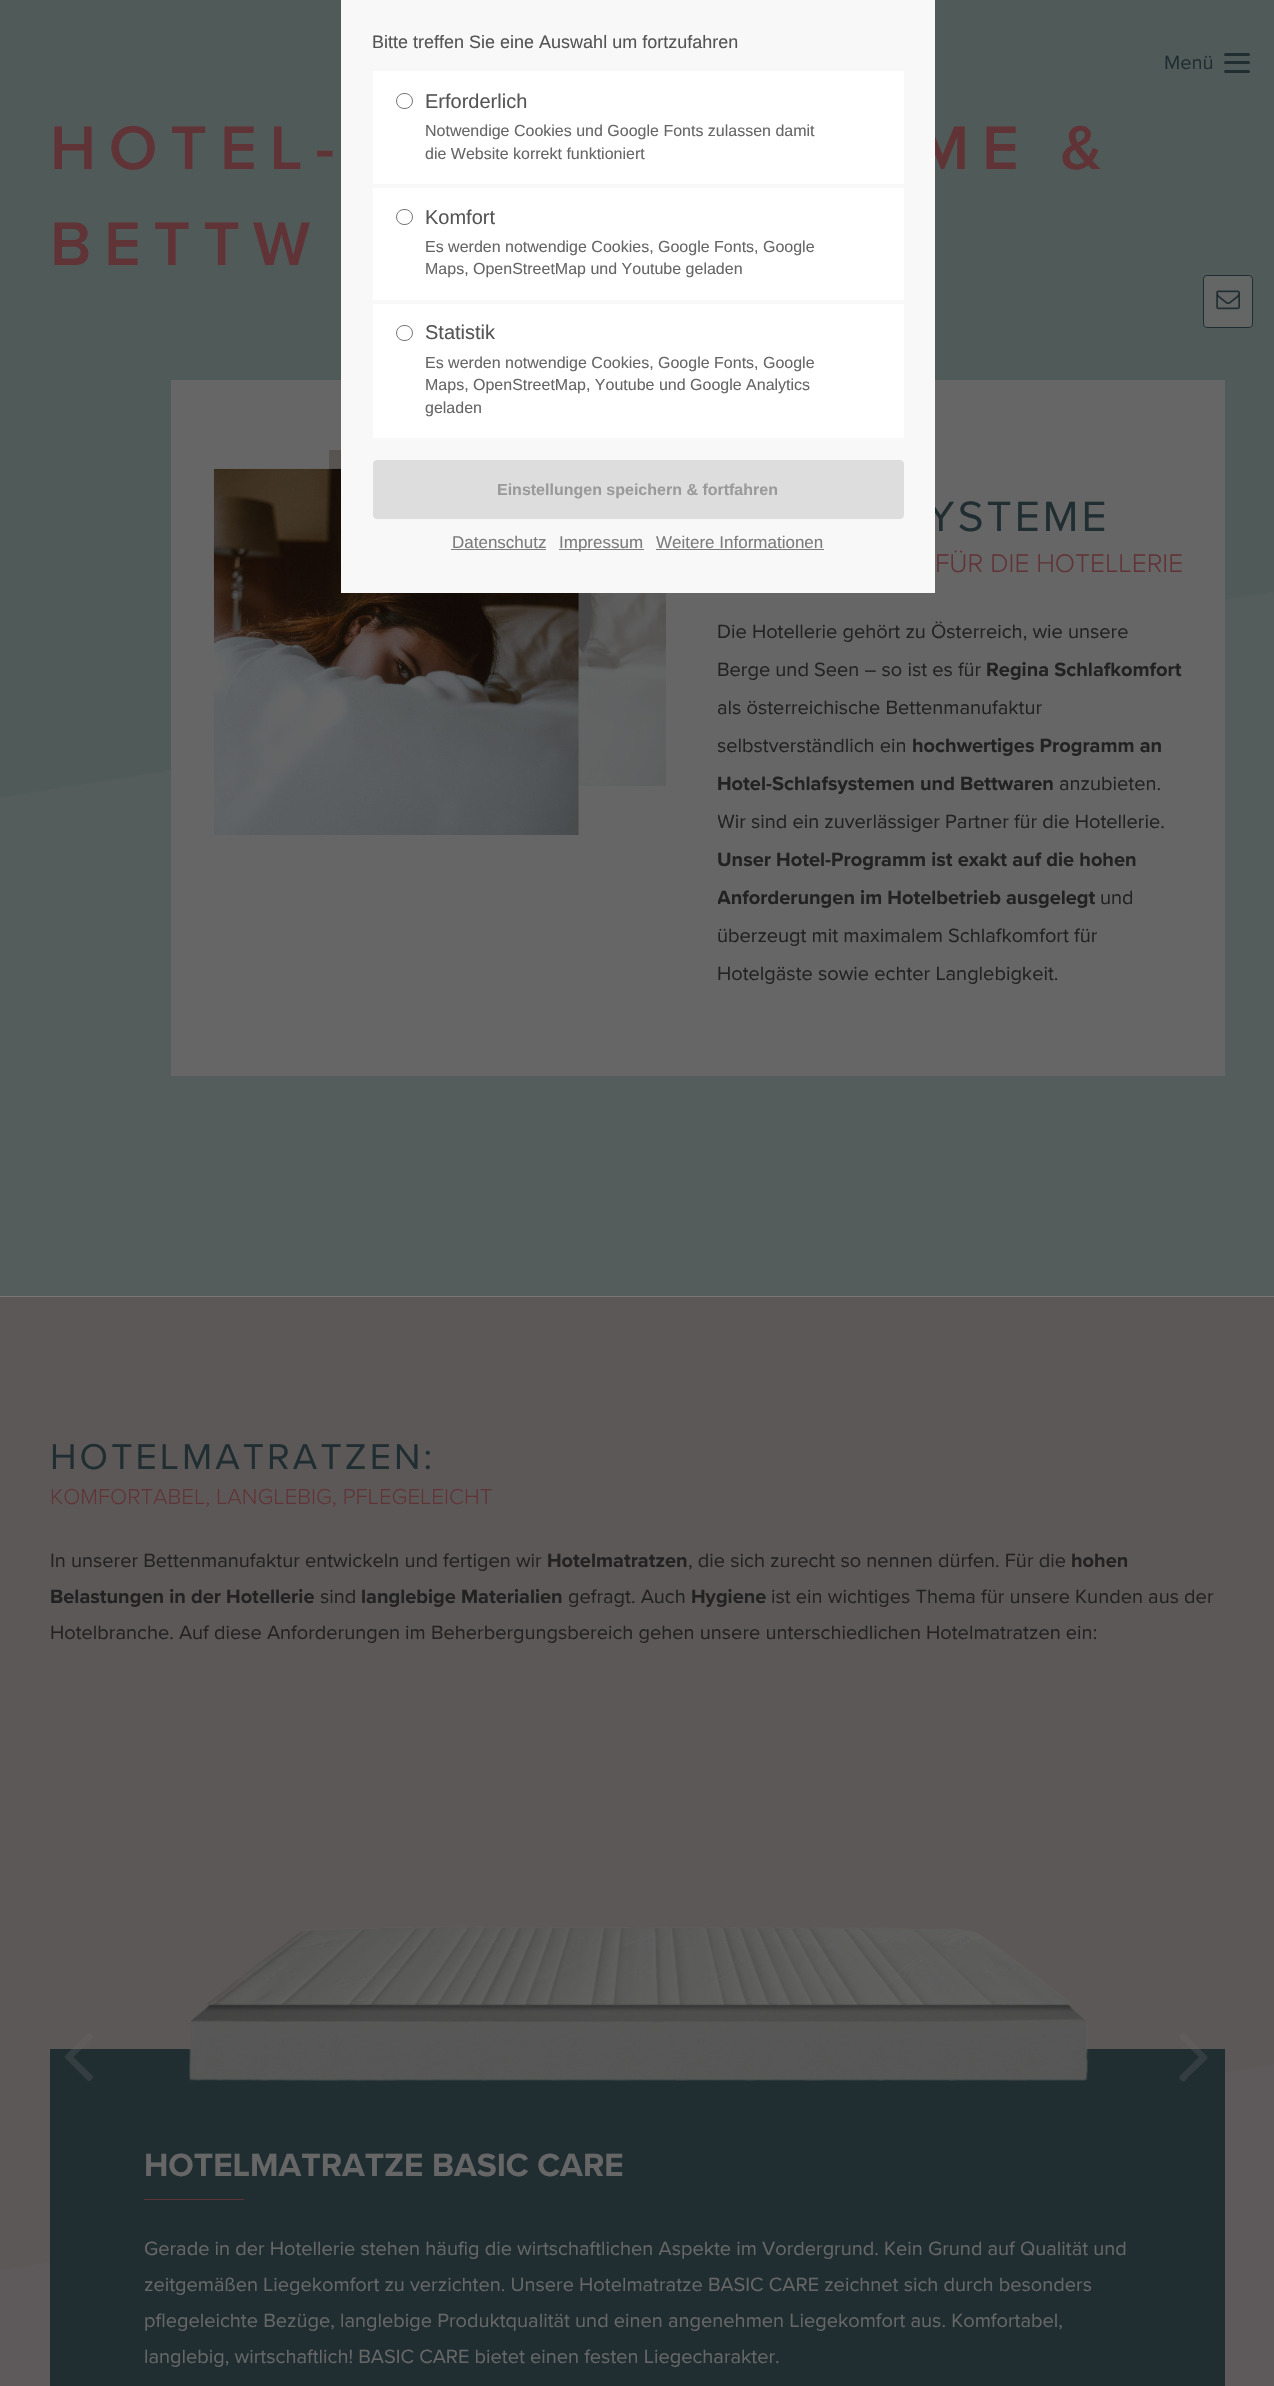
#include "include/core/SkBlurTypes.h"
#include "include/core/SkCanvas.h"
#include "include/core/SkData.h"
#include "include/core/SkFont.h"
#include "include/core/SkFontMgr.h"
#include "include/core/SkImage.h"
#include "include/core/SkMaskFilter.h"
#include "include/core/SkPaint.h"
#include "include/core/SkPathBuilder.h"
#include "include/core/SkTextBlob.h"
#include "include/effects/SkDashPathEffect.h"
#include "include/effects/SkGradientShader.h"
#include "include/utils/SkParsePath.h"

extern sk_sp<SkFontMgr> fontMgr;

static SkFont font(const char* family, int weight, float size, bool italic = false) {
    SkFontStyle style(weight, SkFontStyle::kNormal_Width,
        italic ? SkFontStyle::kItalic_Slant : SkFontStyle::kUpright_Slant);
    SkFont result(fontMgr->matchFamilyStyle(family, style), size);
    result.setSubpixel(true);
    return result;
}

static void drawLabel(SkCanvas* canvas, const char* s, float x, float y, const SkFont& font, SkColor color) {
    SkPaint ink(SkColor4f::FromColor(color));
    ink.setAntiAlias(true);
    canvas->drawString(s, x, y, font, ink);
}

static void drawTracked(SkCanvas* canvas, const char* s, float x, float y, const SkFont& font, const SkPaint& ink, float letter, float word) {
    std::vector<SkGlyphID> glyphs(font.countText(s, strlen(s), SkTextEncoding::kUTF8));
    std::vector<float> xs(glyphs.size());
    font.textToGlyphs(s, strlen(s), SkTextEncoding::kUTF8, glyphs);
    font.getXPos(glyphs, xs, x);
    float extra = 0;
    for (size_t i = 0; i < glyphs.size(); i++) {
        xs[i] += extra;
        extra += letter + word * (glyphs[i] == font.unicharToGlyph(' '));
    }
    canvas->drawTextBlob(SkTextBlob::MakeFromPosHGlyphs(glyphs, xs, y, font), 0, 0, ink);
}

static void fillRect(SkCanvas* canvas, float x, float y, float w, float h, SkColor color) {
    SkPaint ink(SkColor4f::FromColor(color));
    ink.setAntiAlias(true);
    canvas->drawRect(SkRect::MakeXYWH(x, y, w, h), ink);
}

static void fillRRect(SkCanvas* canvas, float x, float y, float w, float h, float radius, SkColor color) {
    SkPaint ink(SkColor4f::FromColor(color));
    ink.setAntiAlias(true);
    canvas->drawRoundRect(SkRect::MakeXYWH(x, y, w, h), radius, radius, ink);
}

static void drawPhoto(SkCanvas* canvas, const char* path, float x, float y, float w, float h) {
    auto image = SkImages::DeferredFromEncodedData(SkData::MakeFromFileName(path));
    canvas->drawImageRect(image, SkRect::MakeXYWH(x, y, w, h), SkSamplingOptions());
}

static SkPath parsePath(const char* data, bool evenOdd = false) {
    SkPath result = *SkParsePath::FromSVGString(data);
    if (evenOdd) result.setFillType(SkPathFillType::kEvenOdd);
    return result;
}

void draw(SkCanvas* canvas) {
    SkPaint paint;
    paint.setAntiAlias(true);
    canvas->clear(0xFFFFFFFF);
    drawPhoto(canvas, "assets/img1.png", 0, 0, 1274, 1297);
    SkFont font1 = font("Proxima Nova", 600, 63.75f);
    paint.setColor(0xFF603437);
    drawTracked(canvas, "ME &", 916, 169, font1, paint, 12.75f, 0);
    fillRect(canvas, 171, 380, 1054, 696, 0xFF666666);
    drawPhoto(canvas, "assets/img2.png", 329, 450, 337, 336);
    drawPhoto(canvas, "assets/img3.png", 213, 468, 366, 367);
    SkFont font2 = font("Proxima Nova", 400, 44);
    paint.setColor(0xFF202E32);
    drawTracked(canvas, "YSTEME", 927, 531, font2, paint, 3.1f, 0);
    fillRect(canvas, 341, 0, 594, 593, 0xFFF8F8F8);
    SkFont font3 = font("Liberation Sans", 400, 18);
    drawLabel(canvas, "Bitte treffen Sie eine Auswahl um fortzufahren", 372, 48, font3, 0xFF555555);
    fillRect(canvas, 373, 71, 531, 113, 0xFFFFFFFF);
    paint.setStroke(true);
    paint.setStrokeWidth(1);
    paint.setColor(0xFF767676);
    canvas->drawRoundRect(SkRect::MakeXYWH(396.5f, 93.5f, 16, 15), 7.5f, 7.5f, paint);
    SkFont font4 = font("Liberation Sans", 400, 20);
    drawLabel(canvas, "Erforderlich", 425, 108, font4, 0xFF555555);
    SkFont font5 = font("Liberation Sans", 400, 16);
    drawLabel(canvas, "Notwendige Cookies und Google Fonts zulassen damit", 425, 136, font5, 0xFF666666);
    drawLabel(canvas, "die Website korrekt funktioniert", 425, 159, font5, 0xFF666666);
    fillRect(canvas, 373, 188, 531, 112, 0xFFFFFFFF);
    canvas->drawRoundRect(SkRect::MakeXYWH(396.5f, 209.5f, 16, 15), 7.5f, 7.5f, paint);
    drawLabel(canvas, "Komfort", 425, 224, font4, 0xFF555555);
    drawLabel(canvas, "Es werden notwendige Cookies, Google Fonts, Google", 425, 252, font5, 0xFF666666);
    drawLabel(canvas, "Maps, OpenStreetMap und Youtube geladen", 425, 274, font5, 0xFF666666);
    fillRect(canvas, 373, 304, 531, 134, 0xFFFFFFFF);
    canvas->drawRoundRect(SkRect::MakeXYWH(396.5f, 325.5f, 16, 15), 7.5f, 7.5f, paint);
    drawLabel(canvas, "Statistik", 425, 339, font4, 0xFF555555);
    drawLabel(canvas, "Es werden notwendige Cookies, Google Fonts, Google", 425, 368, font5, 0xFF666666);
    drawLabel(canvas, "Maps, OpenStreetMap, Youtube und Google Analytics", 425, 390, font5, 0xFF666666);
    drawLabel(canvas, "geladen", 425, 413, font5, 0xFF666666);
    paint.setStroke(false);
    paint.setColor(0xFFDDDDDD);
    canvas->drawRoundRect(SkRect::MakeXYWH(373.5f, 460.5f, 530, 58), 3.5f, 3.5f, paint);
    paint.setStroke(true);
    canvas->drawRoundRect(SkRect::MakeXYWH(373.5f, 460.5f, 530, 58), 3.5f, 3.5f, paint);
    SkFont font6 = font("Liberation Sans", 700, 16);
    drawLabel(canvas, "Einstellungen speichern & fortfahren", 497, 495, font6, 0xFF9A9A9A);
    SkFont font7 = font("Liberation Sans", 400, 17);
    drawLabel(canvas, "Datenschutz", 452, 548, font7, 0xFF7C7C7C);
    fillRect(canvas, 451, 549, 95, 1, 0xFF7C7C7C);
    fillRect(canvas, 559, 549, 85, 1, 0xFF7C7C7C);
    drawLabel(canvas, "Impressum", 559, 548, font7, 0xFF7C7C7C);
    drawLabel(canvas, "Weitere Informationen", 656, 548, font7, 0xFF7C7C7C);
    fillRect(canvas, 656, 549, 168, 1, 0xFF7C7C7C);
    SkFont font8 = font("Proxima Nova", 400, 20);
    drawLabel(canvas, "Menü", 1164, 69, font8, 0xFF202E32);
    fillRRect(canvas, 1224, 61, 26, 3, 1.5f, 0xFF202E32);
    fillRRect(canvas, 1224, 53, 26, 3, 1.5f, 0xFF202E32);
    fillRRect(canvas, 1224, 70, 26, 3, 1.5f, 0xFF202E32);
    paint.setStroke(false);
    paint.setColor(0xFF603437);
    drawTracked(canvas, "HOTEL-", 50, 169, font1, paint, 12.75f, 0);
    drawTracked(canvas, "BETTW", 50, 265, font1, paint, 12.75f, 0);
    SkFont font9 = font("Proxima Nova", 300, 26.5f);
    drawLabel(canvas, "FÜR DIE HOTELLERIE", 935, 572, font9, 0xFF603437);
    drawLabel(canvas, "Die Hotellerie gehört zu Österreich, wie unsere", 717, 638, font8, 0xFF222222);
    drawLabel(canvas, "Berge und Seen – so ist es für", 717, 676, font8, 0xFF222222);
    SkFont font10 = font("Proxima Nova", 700, 20);
    drawLabel(canvas, "Regina Schlafkomfort", 986, 676, font10, 0xFF222222);
    drawLabel(canvas, "als österreichische Bettenmanufaktur", 717, 714, font8, 0xFF222222);
    canvas->save();
    canvas->clipRect(SkRect::MakeXYWH(718, 613, 465, 380));
    drawLabel(canvas, "selbstverständlich ein", 717, 752, font8, 0xFF222222);
    canvas->restore();
    drawLabel(canvas, "hochwertiges Programm an", 912, 752, font10, 0xFF222222);
    drawLabel(canvas, "Hotel-Schlafsystemen und Bettwaren", 717, 790, font10, 0xFF222222);
    drawLabel(canvas, "anzubieten.", 1059, 790, font8, 0xFF222222);
    canvas->save();
    canvas->clipRect(SkRect::MakeXYWH(718, 613, 465, 380));
    drawLabel(canvas, "Wir sind ein zuverlässiger Partner für die Hotellerie.", 717, 828, font8, 0xFF222222);
    canvas->restore();
    drawLabel(canvas, "Unser Hotel-Programm ist exakt auf die hohen", 717, 866, font10, 0xFF222222);
    canvas->save();
    canvas->clipRect(SkRect::MakeXYWH(718, 613, 465, 380));
    drawLabel(canvas, "Anforderungen im Hotelbetrieb ausgelegt", 717, 904, font10, 0xFF222222);
    canvas->restore();
    drawLabel(canvas, "und", 1100, 904, font8, 0xFF222222);
    drawLabel(canvas, "überzeugt mit maximalem Schlafkomfort für", 717, 942, font8, 0xFF222222);
    drawLabel(canvas, "Hotelgäste sowie echter Langlebigkeit.", 717, 980, font8, 0xFF222222);
    paint.setColor(0xFF646565);
    canvas->drawRoundRect(SkRect::MakeXYWH(1203.5f, 275.5f, 49, 52), 3.5f, 3.5f, paint);
    paint.setStroke(true);
    paint.setColor(0xFF202E32);
    canvas->drawRoundRect(SkRect::MakeXYWH(1203.5f, 275.5f, 49, 52), 3.5f, 3.5f, paint);
    drawPhoto(canvas, "assets/img4.png", 1216, 290, 24, 20);
    drawPhoto(canvas, "assets/img5.png", 0, 1296, 1274, 1090);
    SkFont font11 = font("Proxima Nova", 400, 37.25f);
    paint.setStroke(false);
    drawTracked(canvas, "HOTELMATRATZEN:", 50, 1469, font11, paint, 3.1f, 0);
    SkFont font12 = font("Proxima Nova", 300, 22.4f);
    drawLabel(canvas, "KOMFORTABEL, LANGLEBIG, PFLEGELEICHT", 50, 1504, font12, 0xFF603437);
    drawLabel(canvas, "In unserer Bettenmanufaktur entwickeln und fertigen wir", 50, 1567, font8, 0xFF222222);
    drawLabel(canvas, "Hotelmatratzen", 547, 1567, font10, 0xFF222222);
    drawLabel(canvas, ", die sich zurecht so nennen dürfen. Für die", 688, 1567, font8, 0xFF222222);
    drawLabel(canvas, "hohen", 1071, 1567, font10, 0xFF222222);
    drawLabel(canvas, "Belastungen in der Hotellerie", 50, 1603, font10, 0xFF222222);
    drawLabel(canvas, "sind", 320, 1603, font8, 0xFF222222);
    drawLabel(canvas, "langlebige Materialien", 361, 1603, font10, 0xFF222222);
    drawLabel(canvas, "gefragt. Auch", 568, 1603, font8, 0xFF222222);
    drawLabel(canvas, "Hygiene", 691, 1603, font10, 0xFF222222);
    drawLabel(canvas, "ist ein wichtiges Thema für unsere Kunden aus der", 771, 1603, font8, 0xFF222222);
    drawLabel(canvas, "Hotelbranche. Auf diese Anforderungen im Beherbergungsbereich gehen unsere unterschiedlichen Hotelmatratzen ein:", 50, 1639, font8, 0xFF222222);
    fillRect(canvas, 50, 2049, 1175, 337, 0xFF202E32);
    drawPhoto(canvas, "assets/img6.png", 64, 2033, 29, 49);
    paint.setColor(0x45666666);
    canvas->drawPath(parsePath("M1207 2056C1209 2058 1204 2062 1204 2062L1188 2077C1188 2077 1185 2083 1182 2081C1181 2080 1178 2078 1180 2076L1199 2057L1186 2044C1182 2040 1177 2038 1181 2034C1184 2031 1185 2033 1188 2037Z"), paint);
    drawPhoto(canvas, "assets/img7.png", 189, 1926, 900, 155);
    SkFont font13 = font("Proxima Nova", 700, 33.3f);
    drawLabel(canvas, "HOTELMATRATZE BASIC CARE", 144, 2176, font13, 0xFF666666);
    fillRect(canvas, 144, 2199, 100, 1, 0xFF603437);
    drawLabel(canvas, "Gerade in der Hotellerie stehen häufig die wirtschaftlichen Aspekte im Vordergrund. Kein Grund auf Qualität und", 144, 2255, font8, 0xFF666666);
    drawLabel(canvas, "zeitgemäßen Liegekomfort zu verzichten. Unsere Hotelmatratze BASIC CARE zeichnet sich durch besonders", 144, 2291, font8, 0xFF666666);
    drawLabel(canvas, "pflegeleichte Bezüge, langlebige Produktqualität und einen angenehmen Liegekomfort aus. Komfortabel,", 144, 2327, font8, 0xFF666666);
    drawLabel(canvas, "langlebig, wirtschaftlich! BASIC CARE bietet einen festen Liegecharakter.", 144, 2363, font8, 0xFF666666);
}
